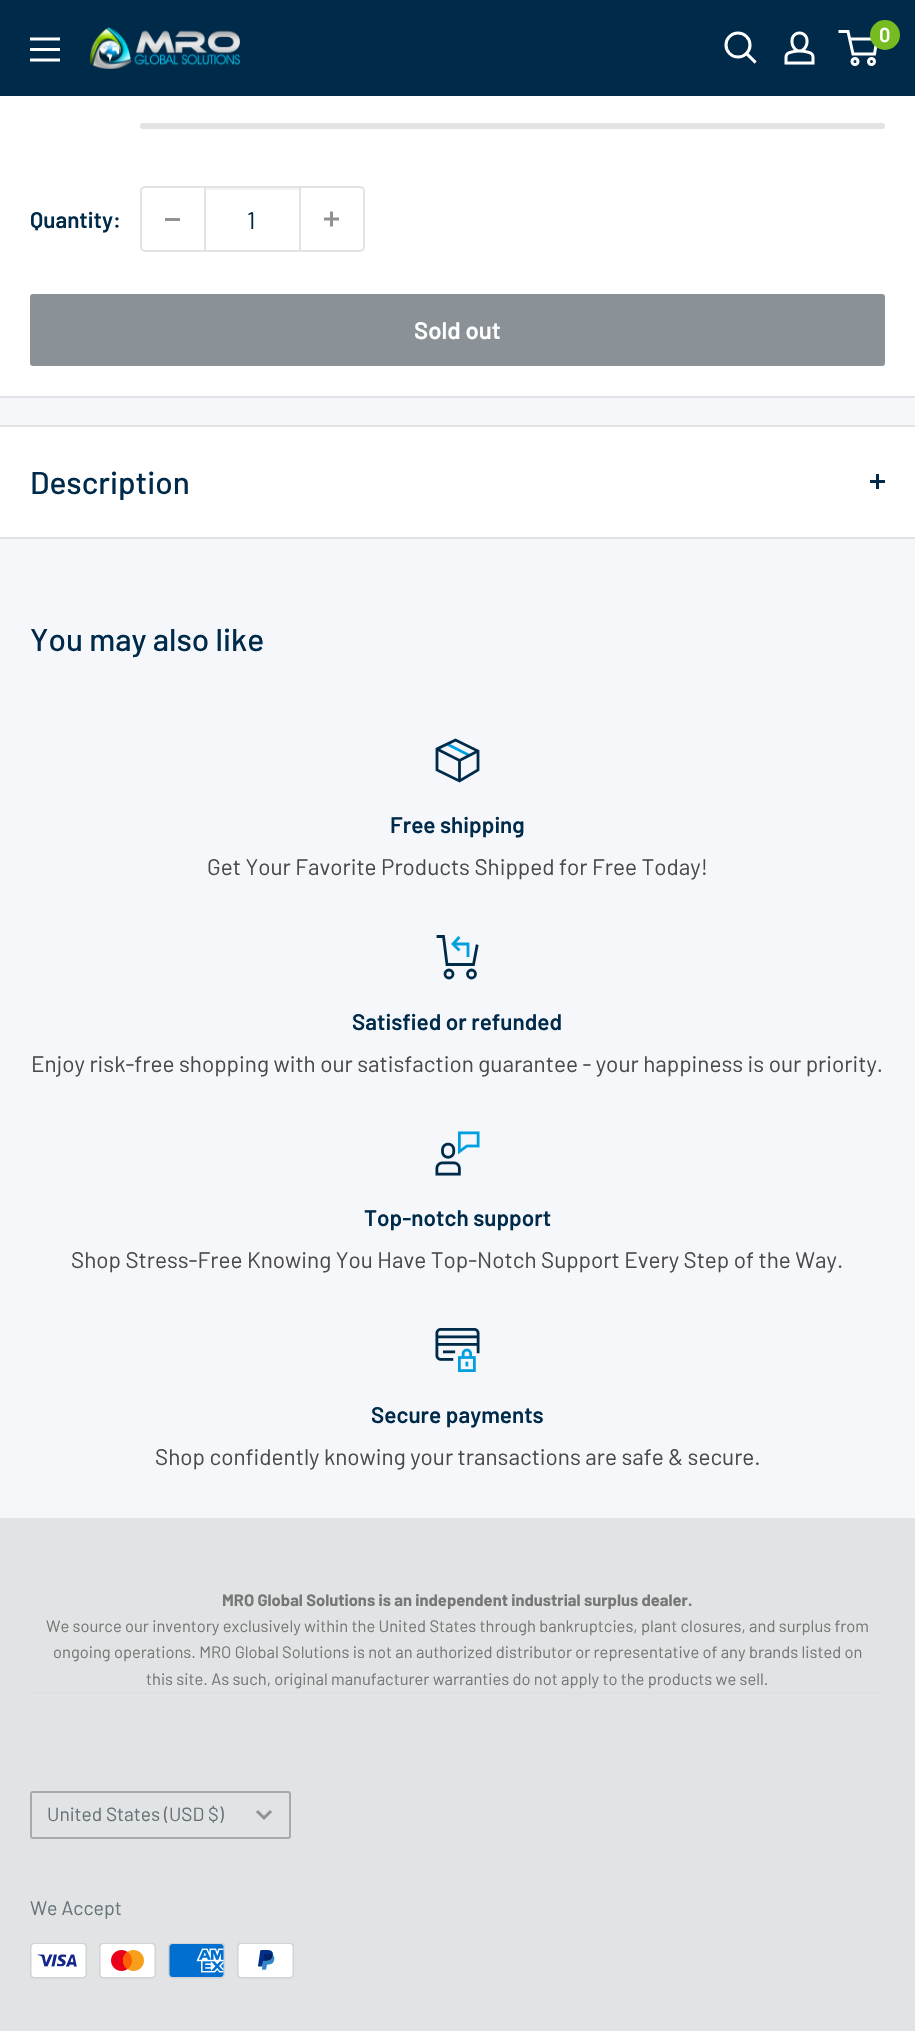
#include "include/core/SkBlurTypes.h"
#include "include/core/SkCanvas.h"
#include "include/core/SkData.h"
#include "include/core/SkFont.h"
#include "include/core/SkFontMgr.h"
#include "include/core/SkImage.h"
#include "include/core/SkMaskFilter.h"
#include "include/core/SkPaint.h"
#include "include/core/SkPathBuilder.h"
#include "include/core/SkTextBlob.h"
#include "include/effects/SkDashPathEffect.h"
#include "include/effects/SkGradientShader.h"
#include "include/utils/SkParsePath.h"

extern sk_sp<SkFontMgr> fontMgr;

static SkFont font(const char* family, int weight, float size, bool italic = false) {
    SkFontStyle style(weight, SkFontStyle::kNormal_Width,
        italic ? SkFontStyle::kItalic_Slant : SkFontStyle::kUpright_Slant);
    SkFont result(fontMgr->matchFamilyStyle(family, style), size);
    result.setSubpixel(true);
    return result;
}

static void drawLabel(SkCanvas* canvas, const char* s, float x, float y, const SkFont& font, SkColor color) {
    SkPaint ink(SkColor4f::FromColor(color));
    ink.setAntiAlias(true);
    canvas->drawString(s, x, y, font, ink);
}

static void fillRect(SkCanvas* canvas, float x, float y, float w, float h, SkColor color) {
    SkPaint ink(SkColor4f::FromColor(color));
    ink.setAntiAlias(true);
    canvas->drawRect(SkRect::MakeXYWH(x, y, w, h), ink);
}

static void fillRRect(SkCanvas* canvas, float x, float y, float w, float h, float radius, SkColor color) {
    SkPaint ink(SkColor4f::FromColor(color));
    ink.setAntiAlias(true);
    canvas->drawRoundRect(SkRect::MakeXYWH(x, y, w, h), radius, radius, ink);
}

static void drawPhoto(SkCanvas* canvas, const char* path, float x, float y, float w, float h) {
    auto image = SkImages::DeferredFromEncodedData(SkData::MakeFromFileName(path));
    canvas->drawImageRect(image, SkRect::MakeXYWH(x, y, w, h), SkSamplingOptions());
}

static SkPath parsePath(const char* data, bool evenOdd = false) {
    SkPath result = *SkParsePath::FromSVGString(data);
    if (evenOdd) result.setFillType(SkPathFillType::kEvenOdd);
    return result;
}

void draw(SkCanvas* canvas) {
    SkPaint paint;
    paint.setAntiAlias(true);
    canvas->clear(0xFFF5F7FA);
    fillRect(canvas, 0, 0, 915, 96, 0xFF002A4A);
    drawPhoto(canvas, "assets/img1.png", 90, 27, 150, 42);
    paint.setStroke(true);
    paint.setStrokeWidth(3.1f);
    paint.setStrokeCap(SkPaint::kSquare_Cap);
    paint.setColor(0xFFFFFFFF);
    canvas->drawPath(parsePath("M754.5 61.5L746.5 53.5"), paint);
    paint.setStrokeCap(SkPaint::kButt_Cap);
    canvas->drawCircle(738, 45, 12, paint);
    drawPhoto(canvas, "assets/img2.png", 784, 31, 31, 34);
    paint.setStrokeWidth(3);
    canvas->drawCircle(855, 61.5f, 3, paint);
    canvas->drawCircle(871.5f, 61.5f, 3, paint);
    canvas->drawPath(parsePath("M849.5 39H877L874.5 54H853L848 31.5H838.5"), paint);
    paint.setStroke(false);
    paint.setColor(0xFF76BC21);
    canvas->drawCircle(885, 35, 15, paint);
    SkFont font1 = font("Barlow", 600, 20);
    drawLabel(canvas, "0", 879, 42, font1, 0xFFFFFFFF);
    drawPhoto(canvas, "assets/img3.png", 30, 37, 30, 25);
    fillRect(canvas, 0, 96, 915, 300, 0xFFFFFFFF);
    fillRect(canvas, 0, 396, 915, 2, 0xFFE1E3E4);
    fillRRect(canvas, 140, 123, 745, 6, 3, 0xFFE1E3E4);
    SkFont font2 = font("Barlow", 600, 22.5f);
    drawLabel(canvas, "Quantity:", 30, 228, font2, 0xFF002A4A);
    paint.setStroke(true);
    paint.setStrokeWidth(2);
    paint.setColor(0xFFE1E3E4);
    canvas->drawRoundRect(SkRect::MakeXYWH(141, 187, 223, 64), 4, 4, paint);
    fillRect(canvas, 165, 218, 15, 3, 0xFF929292);
    fillRect(canvas, 206, 188, 93, 2, 0xFFF3F4F4);
    fillRect(canvas, 299, 188, 2, 63, 0xFFE1E3E4);
    fillRect(canvas, 204, 188, 2, 63, 0xFFE1E3E4);
    SkFont font3 = font("Barlow", 400, 24);
    drawLabel(canvas, "1", 247, 229, font3, 0xFF002A4A);
    drawPhoto(canvas, "assets/img4.png", 324, 211, 15, 16);
    paint.setStroke(false);
    paint.setColor(0xFF8A9297);
    canvas->drawRoundRect(SkRect::MakeXYWH(31, 295, 853, 70), 2, 2, paint);
    paint.setStroke(true);
    canvas->drawRoundRect(SkRect::MakeXYWH(31, 295, 853, 70), 2, 2, paint);
    SkFont font4 = font("Barlow", 600, 24);
    drawLabel(canvas, "Sold out", 414, 339, font4, 0xFFFFFFFF);
    fillRect(canvas, 0, 427, 915, 110, 0xFFFFFFFF);
    fillRect(canvas, 0, 425, 915, 2, 0xFFE1E3E4);
    fillRect(canvas, 0, 537, 915, 2, 0xFFE1E3E4);
    SkFont font5 = font("Barlow", 500, 31.5f);
    drawLabel(canvas, "Description", 30, 494, font5, 0xFF002A4A);
    fillRect(canvas, 876, 474, 3, 15, 0xFF002A4A);
    fillRect(canvas, 870, 480, 15, 3, 0xFF002A4A);
    drawLabel(canvas, "You may also like", 30, 651, font5, 0xFF002A4A);
    paint.setStrokeWidth(2.8f);
    paint.setColor(0xFF009FDF);
    canvas->drawPath(parsePath("M447 744L469.5 755.5"), paint);
    paint.setColor(0xFF002A4A);
    canvas->drawPath(parsePath("M478 751L459.5 760.5L437 749M459.5 760.5V781"), paint);
    paint.setStrokeCap(SkPaint::kSquare_Cap);
    canvas->drawPath(parsePath("M478 751V770L459.5 781L437 770V749L455.5 740Z"), paint);
    drawLabel(canvas, "Free shipping", 390, 833, font2, 0xFF002A4A);
    SkFont font6 = font("Barlow", 400, 22.5f);
    drawLabel(canvas, "Get Your Favorite Products Shipped for Free Today!", 207, 875, font6, 0xFF4A4A4A);
    paint.setStrokeCap(SkPaint::kButt_Cap);
    paint.setColor(0xFF009FDF);
    canvas->drawPath(parsePath("M453 944H468V957"), paint);
    paint.setStrokeCap(SkPaint::kSquare_Cap);
    canvas->drawPath(parsePath("M458.5 949.5L453 944L458.5 938"), paint);
    paint.setColor(0xFF002A4A);
    canvas->drawPath(parsePath("M477 946L473.5 964.5H447L443.5 936.5H438"), paint);
    paint.setStrokeCap(SkPaint::kButt_Cap);
    canvas->drawCircle(449, 974, 4, paint);
    canvas->drawCircle(471.5f, 974, 4, paint);
    drawLabel(canvas, "Satisfied or refunded", 352, 1030, font2, 0xFF002A4A);
    drawLabel(canvas, "Enjoy risk-free shopping with our satisfaction guarantee - your happiness is our priority.", 31, 1072, font6, 0xFF4A4A4A);
    drawPhoto(canvas, "assets/img5.png", 435, 1131, 45, 45);
    drawLabel(canvas, "Top-notch support", 364, 1226, font2, 0xFF002A4A);
    drawLabel(canvas, "Shop Stress-Free Knowing You Have Top-Notch Support Every Step of the Way.", 71, 1268, font6, 0xFF4A4A4A);
    drawPhoto(canvas, "assets/img6.png", 435, 1328, 45, 44);
    drawLabel(canvas, "Secure payments", 371, 1423, font2, 0xFF002A4A);
    drawLabel(canvas, "Shop confidently knowing your transactions are safe & secure.", 155, 1465, font6, 0xFF4A4A4A);
    fillRect(canvas, 0, 1518, 915, 513, 0xFFE1E3E4);
    fillRect(canvas, 30, 1692, 855, 2, 0xFFE0E0E0);
    SkFont font7 = font("Barlow", 700, 16.5f);
    drawLabel(canvas, "MRO Global Solutions is an independent industrial surplus dealer.", 222, 1606, font7, 0xFF777777);
    SkFont font8 = font("Barlow", 400, 16.5f);
    drawLabel(canvas, "We source our inventory exclusively within the United States through bankruptcies, plant closures, and surplus from", 46, 1632, font8, 0xFF777777);
    drawLabel(canvas, "ongoing operations. MRO Global Solutions is not an authorized distributor or representative of any brands listed on", 53, 1658, font8, 0xFF777777);
    drawLabel(canvas, "this site. As such, original manufacturer warranties do not apply to the products we sell.", 146, 1685, font8, 0xFF777777);
    paint.setStrokeWidth(2);
    paint.setColor(0xFFA4ABAF);
    canvas->drawRoundRect(SkRect::MakeXYWH(31, 1792, 259, 46), 2, 2, paint);
    SkFont font9 = font("Barlow", 400, 19.1f);
    drawLabel(canvas, "United States (USD $)", 47, 1821, font9, 0xFF677279);
    paint.setStrokeWidth(3);
    paint.setStrokeCap(SkPaint::kSquare_Cap);
    paint.setColor(0xFF8C9499);
    canvas->drawPath(parsePath("M270 1812L264 1818L258 1812"), paint);
    SkFont font10 = font("Barlow", 400, 19.5f);
    drawLabel(canvas, "We Accept", 30, 1915, font10, 0xFF677279);
    drawPhoto(canvas, "assets/img7.png", 30, 1943, 57, 36);
    drawPhoto(canvas, "assets/img8.png", 99, 1943, 57, 36);
    drawPhoto(canvas, "assets/img9.png", 168, 1943, 57, 36);
    drawPhoto(canvas, "assets/img10.png", 237, 1943, 57, 36);
}
